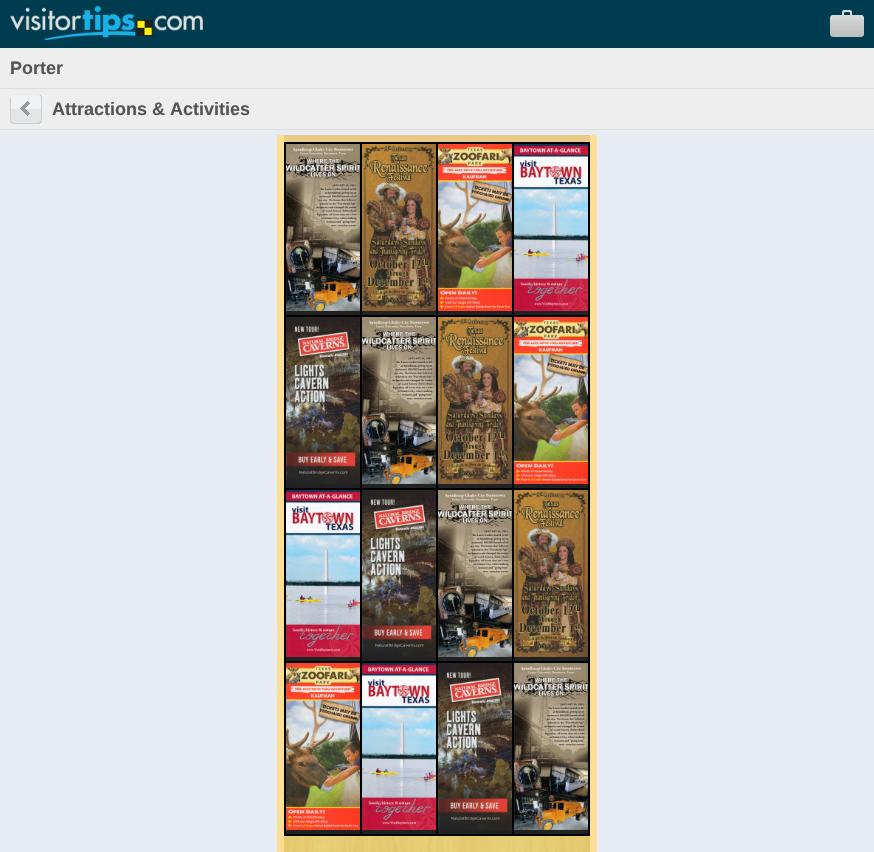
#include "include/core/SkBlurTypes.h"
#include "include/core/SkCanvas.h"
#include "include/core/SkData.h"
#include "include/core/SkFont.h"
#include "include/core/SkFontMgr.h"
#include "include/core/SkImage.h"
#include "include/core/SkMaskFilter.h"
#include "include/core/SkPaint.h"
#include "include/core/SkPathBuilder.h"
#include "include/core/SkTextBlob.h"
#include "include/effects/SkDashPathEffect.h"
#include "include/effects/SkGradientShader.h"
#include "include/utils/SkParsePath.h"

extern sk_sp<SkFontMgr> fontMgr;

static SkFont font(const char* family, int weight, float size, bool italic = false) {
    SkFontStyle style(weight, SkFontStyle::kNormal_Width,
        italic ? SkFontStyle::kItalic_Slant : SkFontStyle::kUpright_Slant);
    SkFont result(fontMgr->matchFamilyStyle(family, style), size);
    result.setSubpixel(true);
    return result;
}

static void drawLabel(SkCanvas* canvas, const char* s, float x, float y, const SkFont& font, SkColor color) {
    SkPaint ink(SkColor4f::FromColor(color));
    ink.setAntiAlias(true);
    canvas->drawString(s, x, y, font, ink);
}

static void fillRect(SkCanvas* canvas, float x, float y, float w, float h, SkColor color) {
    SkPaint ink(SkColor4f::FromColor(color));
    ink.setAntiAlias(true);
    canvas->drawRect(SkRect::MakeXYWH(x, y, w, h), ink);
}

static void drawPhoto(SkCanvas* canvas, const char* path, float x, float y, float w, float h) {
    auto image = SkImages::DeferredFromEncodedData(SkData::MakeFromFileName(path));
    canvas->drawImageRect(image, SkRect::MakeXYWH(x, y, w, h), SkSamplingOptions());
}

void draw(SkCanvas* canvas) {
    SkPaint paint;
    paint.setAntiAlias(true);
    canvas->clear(0xFFE7ECF2);
    fillRect(canvas, 0, 0, 874, 48, 0xFF003C50);
    drawPhoto(canvas, "assets/img1.png", 10, 6, 193, 34);
    drawPhoto(canvas, "assets/img2.png", 830, 10, 34, 27);
    fillRect(canvas, 0, 48, 874, 40, 0xFFEEEEEE);
    fillRect(canvas, 0, 88, 874, 1, 0xFFDDDDDD);
    SkFont font1 = font("Liberation Sans", 700, 18);
    drawLabel(canvas, "Porter", 10, 74, font1, 0xFF555555);
    fillRect(canvas, 0, 89, 874, 40, 0xFFEEEEEE);
    fillRect(canvas, 0, 129, 874, 1, 0xFFDDDDDD);
    drawPhoto(canvas, "assets/img3.png", 10, 94, 32, 30);
    drawLabel(canvas, "Attractions & Activities", 52, 115, font1, 0xFF555555);
    fillRect(canvas, 277, 135, 7, 717, 0xFFFCDE94);
    fillRect(canvas, 284, 135, 306, 7, 0xFFEAC986);
    fillRect(canvas, 590, 135, 7, 717, 0xFFFCDE94);
    fillRect(canvas, 284, 142, 306, 694, 0xFF000000);
    fillRect(canvas, 286, 311, 74, 4, 0xFF222222);
    drawPhoto(canvas, "assets/img4.png", 286, 144, 74, 167);
    fillRect(canvas, 362, 311, 74, 4, 0xFF222222);
    drawPhoto(canvas, "assets/img5.png", 362, 144, 74, 167);
    fillRect(canvas, 438, 311, 74, 4, 0xFF222222);
    drawPhoto(canvas, "assets/img6.png", 438, 144, 74, 167);
    fillRect(canvas, 514, 311, 74, 4, 0xFF222222);
    drawPhoto(canvas, "assets/img7.png", 514, 144, 74, 167);
    fillRect(canvas, 286, 484, 74, 4, 0xFF222222);
    drawPhoto(canvas, "assets/img8.png", 286, 317, 74, 167);
    fillRect(canvas, 362, 484, 74, 4, 0xFF222222);
    drawPhoto(canvas, "assets/img9.png", 362, 317, 74, 167);
    fillRect(canvas, 438, 484, 74, 4, 0xFF222222);
    drawPhoto(canvas, "assets/img5.png", 438, 317, 74, 167);
    fillRect(canvas, 514, 484, 74, 4, 0xFF222222);
    drawPhoto(canvas, "assets/img10.png", 514, 317, 74, 167);
    fillRect(canvas, 286, 657, 74, 4, 0xFF222222);
    drawPhoto(canvas, "assets/img11.png", 286, 490, 74, 167);
    fillRect(canvas, 362, 657, 74, 4, 0xFF222222);
    drawPhoto(canvas, "assets/img8.png", 362, 490, 74, 167);
    fillRect(canvas, 438, 657, 74, 4, 0xFF222222);
    drawPhoto(canvas, "assets/img9.png", 438, 490, 74, 167);
    fillRect(canvas, 514, 657, 74, 4, 0xFF222222);
    drawPhoto(canvas, "assets/img12.png", 514, 490, 74, 167);
    fillRect(canvas, 286, 830, 74, 4, 0xFF222222);
    drawPhoto(canvas, "assets/img13.png", 286, 663, 74, 167);
    fillRect(canvas, 362, 830, 74, 4, 0xFF222222);
    drawPhoto(canvas, "assets/img11.png", 362, 663, 74, 167);
    fillRect(canvas, 438, 830, 74, 4, 0xFF222222);
    drawPhoto(canvas, "assets/img8.png", 438, 663, 74, 167);
    fillRect(canvas, 514, 830, 74, 4, 0xFF222222);
    drawPhoto(canvas, "assets/img14.png", 514, 663, 74, 167);
    drawPhoto(canvas, "assets/img15.png", 284, 836, 306, 16);
}
